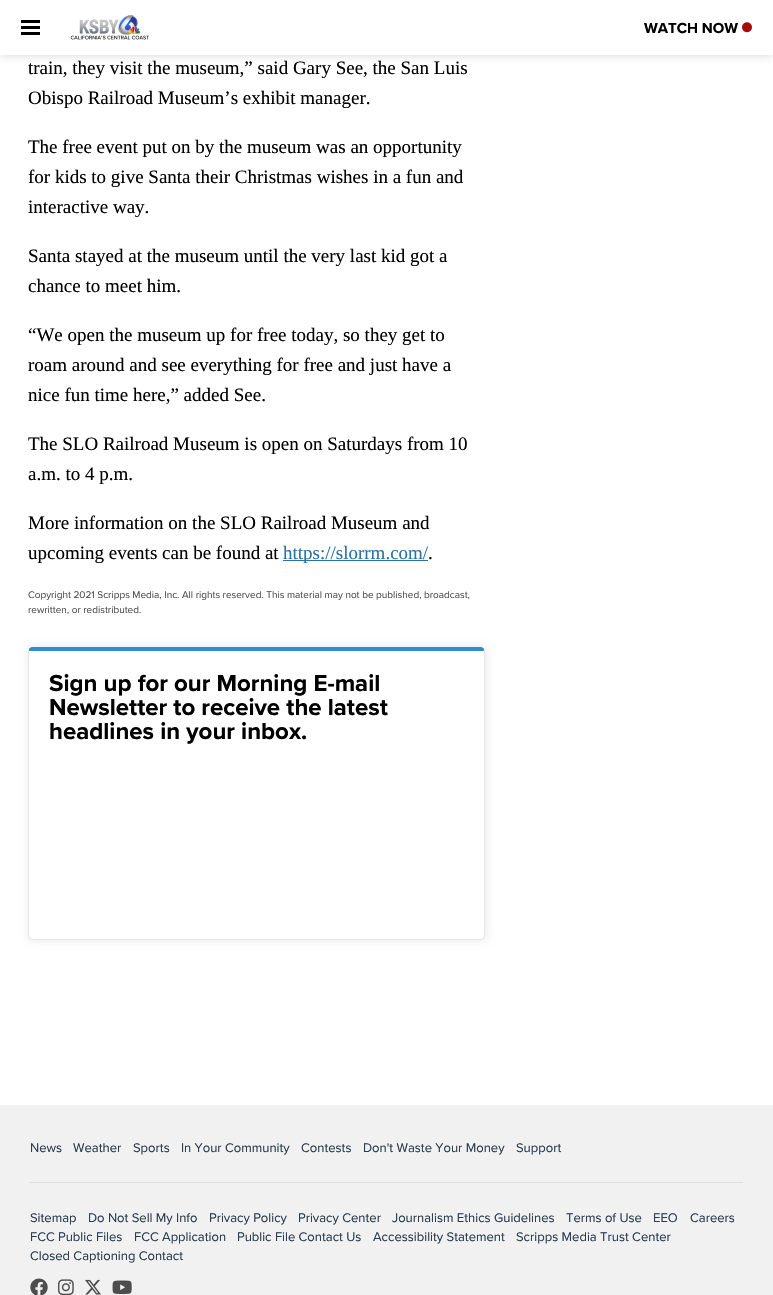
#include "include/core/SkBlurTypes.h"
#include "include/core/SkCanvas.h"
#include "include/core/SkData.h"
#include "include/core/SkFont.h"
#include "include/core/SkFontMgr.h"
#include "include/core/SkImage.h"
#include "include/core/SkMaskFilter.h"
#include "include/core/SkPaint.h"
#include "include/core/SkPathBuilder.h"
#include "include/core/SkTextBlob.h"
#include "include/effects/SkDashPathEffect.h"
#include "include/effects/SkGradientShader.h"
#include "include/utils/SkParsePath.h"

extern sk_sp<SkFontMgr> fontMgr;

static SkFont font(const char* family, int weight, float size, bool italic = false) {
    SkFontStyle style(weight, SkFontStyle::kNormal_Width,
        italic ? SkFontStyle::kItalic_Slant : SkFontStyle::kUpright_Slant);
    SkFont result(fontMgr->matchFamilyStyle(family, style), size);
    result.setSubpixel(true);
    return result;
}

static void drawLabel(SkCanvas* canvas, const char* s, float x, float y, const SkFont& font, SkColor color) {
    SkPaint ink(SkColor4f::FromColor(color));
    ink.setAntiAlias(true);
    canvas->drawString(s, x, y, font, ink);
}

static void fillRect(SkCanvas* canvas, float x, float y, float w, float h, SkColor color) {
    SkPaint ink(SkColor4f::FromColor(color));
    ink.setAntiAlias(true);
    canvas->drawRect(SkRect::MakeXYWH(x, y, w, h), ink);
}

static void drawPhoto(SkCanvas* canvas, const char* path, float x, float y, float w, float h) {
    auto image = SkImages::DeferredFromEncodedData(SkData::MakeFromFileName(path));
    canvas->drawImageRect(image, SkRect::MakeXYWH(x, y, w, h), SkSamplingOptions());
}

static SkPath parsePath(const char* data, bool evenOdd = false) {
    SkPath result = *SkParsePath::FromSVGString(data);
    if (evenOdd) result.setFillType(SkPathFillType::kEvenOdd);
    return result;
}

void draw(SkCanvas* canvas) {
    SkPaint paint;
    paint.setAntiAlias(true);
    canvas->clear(0xFFFFFFFF);
    canvas->save();
    canvas->clipRect(SkRect::MakeXYWH(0, 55, 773, 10));
    paint.setColor(0xCCCCCCCC);
    paint.setMaskFilter(SkMaskFilter::MakeBlur(kNormal_SkBlurStyle, 5));
    canvas->drawRect(SkRect::MakeXYWH(0, 0, 773, 55), paint);
    paint.setMaskFilter(nullptr);
    canvas->restore();
    fillRect(canvas, 21, 20, 19, 3, 0xFF000000);
    fillRect(canvas, 21, 26, 19, 3, 0xFF000000);
    fillRect(canvas, 21, 32, 19, 3, 0xFF000000);
    drawPhoto(canvas, "assets/img1.png", 70, 15, 79, 25);
    SkFont font1 = font("Proxima Nova", 700, 15);
    drawLabel(canvas, "WATCH NOW", 644, 33, font1, 0xFF000000);
    drawPhoto(canvas, "assets/img2.png", 742, 22, 10, 11);
    SkFont font2 = font("Liberation Serif", 400, 19);
    drawLabel(canvas, "train, they visit the museum,” said Gary See, the San Luis", 28, 74, font2, 0xFF000000);
    drawLabel(canvas, "Obispo Railroad Museum’s exhibit manager.", 28, 104, font2, 0xFF000000);
    drawLabel(canvas, "The free event put on by the museum was an opportunity", 28, 153, font2, 0xFF000000);
    drawLabel(canvas, "for kids to give Santa their Christmas wishes in a fun and", 28, 183, font2, 0xFF000000);
    drawLabel(canvas, "interactive way.", 28, 213, font2, 0xFF000000);
    drawLabel(canvas, "Santa stayed at the museum until the very last kid got a", 28, 262, font2, 0xFF000000);
    drawLabel(canvas, "chance to meet him.", 28, 292, font2, 0xFF000000);
    drawLabel(canvas, "“We open the museum up for free today, so they get to", 28, 341, font2, 0xFF000000);
    drawLabel(canvas, "roam around and see everything for free and just have a", 28, 371, font2, 0xFF000000);
    drawLabel(canvas, "nice fun time here,” added See.", 28, 401, font2, 0xFF000000);
    drawLabel(canvas, "The SLO Railroad Museum is open on Saturdays from 10", 28, 450, font2, 0xFF000000);
    drawLabel(canvas, "a.m. to 4 p.m.", 28, 480, font2, 0xFF000000);
    drawLabel(canvas, "More information on the SLO Railroad Museum and", 28, 529, font2, 0xFF000000);
    drawLabel(canvas, "upcoming events can be found at", 28, 559, font2, 0xFF000000);
    fillRect(canvas, 283, 560, 145, 1, 0xFF2972A3);
    drawLabel(canvas, "https://slorrm.com/", 283, 559, font2, 0xFF2972A3);
    drawLabel(canvas, ".", 428, 559, font2, 0xFF000000);
    SkFont font3 = font("Proxima Nova", 400, 10);
    drawLabel(canvas, "Copyright 2021 Scripps Media, Inc. All rights reserved. This material may not be published, broadcast,", 28, 598, font3, 0xFF4E4E4E);
    drawLabel(canvas, "rewritten, or redistributed.", 28, 613, font3, 0xFF4E4E4E);
    canvas->save();
    canvas->clipPath(parsePath("M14 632H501V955H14ZM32 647H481C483 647 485 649 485 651V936C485 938 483 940 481 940H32C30 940 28 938 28 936V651C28 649 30 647 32 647Z", true), true);
    paint.setColor(0xFFE7E7E7);
    paint.setMaskFilter(SkMaskFilter::MakeBlur(kNormal_SkBlurStyle, 4.5f));
    canvas->drawRoundRect(SkRect::MakeXYWH(29, 647, 457, 293), 4, 4, paint);
    paint.setMaskFilter(nullptr);
    canvas->restore();
    paint.setColor(0xFF318CC7);
    canvas->drawPath(parsePath("M32 647C31 647 29 648 29 649V651H484V649C484 648 482 647 481 647Z"), paint);
    paint.setColor(0xFFE7E7E7);
    canvas->drawPath(parsePath("M485 936V651L484 649V651V936L483 938L484 939Z"), paint);
    canvas->drawPath(parsePath("M32 940H481L484 939L483 938L481 939H32L30 938L29 939Z"), paint);
    canvas->drawPath(parsePath("M28 651V936L29 939L30 938L29 936V651V649Z"), paint);
    SkFont font4 = font("Proxima Nova", 700, 24);
    drawLabel(canvas, "Sign up for our Morning E-mail", 49, 691, font4, 0xFF000000);
    drawLabel(canvas, "Newsletter to receive the latest", 49, 715, font4, 0xFF000000);
    drawLabel(canvas, "headlines in your inbox.", 49, 739, font4, 0xFF000000);
    fillRect(canvas, 0, 1105, 773, 190, 0xFFF1F1F1);
    SkFont font5 = font("Proxima Nova", 400, 13);
    drawLabel(canvas, "News", 30, 1152, font5, 0xFF2A3C4F);
    drawLabel(canvas, "Weather", 73, 1152, font5, 0xFF2A3C4F);
    drawLabel(canvas, "Sports", 133, 1152, font5, 0xFF2A3C4F);
    drawLabel(canvas, "In Your Community", 181, 1152, font5, 0xFF2A3C4F);
    drawLabel(canvas, "Contests", 301, 1152, font5, 0xFF2A3C4F);
    drawLabel(canvas, "Don't Waste Your Money", 363, 1152, font5, 0xFF2A3C4F);
    drawLabel(canvas, "Support", 516, 1152, font5, 0xFF2A3C4F);
    fillRect(canvas, 30, 1182, 713, 1, 0xFFDDDDDD);
    drawLabel(canvas, "Sitemap", 30, 1222, font5, 0xFF2A3C4F);
    drawLabel(canvas, "Do Not Sell My Info", 88, 1222, font5, 0xFF2A3C4F);
    drawLabel(canvas, "Privacy Policy", 209, 1222, font5, 0xFF2A3C4F);
    drawLabel(canvas, "Privacy Center", 298, 1222, font5, 0xFF2A3C4F);
    drawLabel(canvas, "Journalism Ethics Guidelines", 392, 1222, font5, 0xFF2A3C4F);
    drawLabel(canvas, "Terms of Use", 566, 1222, font5, 0xFF2A3C4F);
    drawLabel(canvas, "EEO", 653, 1222, font5, 0xFF2A3C4F);
    drawLabel(canvas, "Careers", 690, 1222, font5, 0xFF2A3C4F);
    drawLabel(canvas, "FCC Public Files", 30, 1241, font5, 0xFF2A3C4F);
    drawLabel(canvas, "FCC Application", 134, 1241, font5, 0xFF2A3C4F);
    drawLabel(canvas, "Public File Contact Us", 237, 1241, font5, 0xFF2A3C4F);
    drawLabel(canvas, "Accessibility Statement", 373, 1241, font5, 0xFF2A3C4F);
    drawLabel(canvas, "Scripps Media Trust Center", 516, 1241, font5, 0xFF2A3C4F);
    drawLabel(canvas, "Closed Captioning Contact", 30, 1260, font5, 0xFF2A3C4F);
    drawPhoto(canvas, "assets/img3.png", 30, 1278, 18, 17);
    drawPhoto(canvas, "assets/img4.png", 58, 1279, 16, 16);
    drawPhoto(canvas, "assets/img5.png", 85, 1279, 16, 16);
    drawPhoto(canvas, "assets/img6.png", 112, 1280, 20, 14);
}
